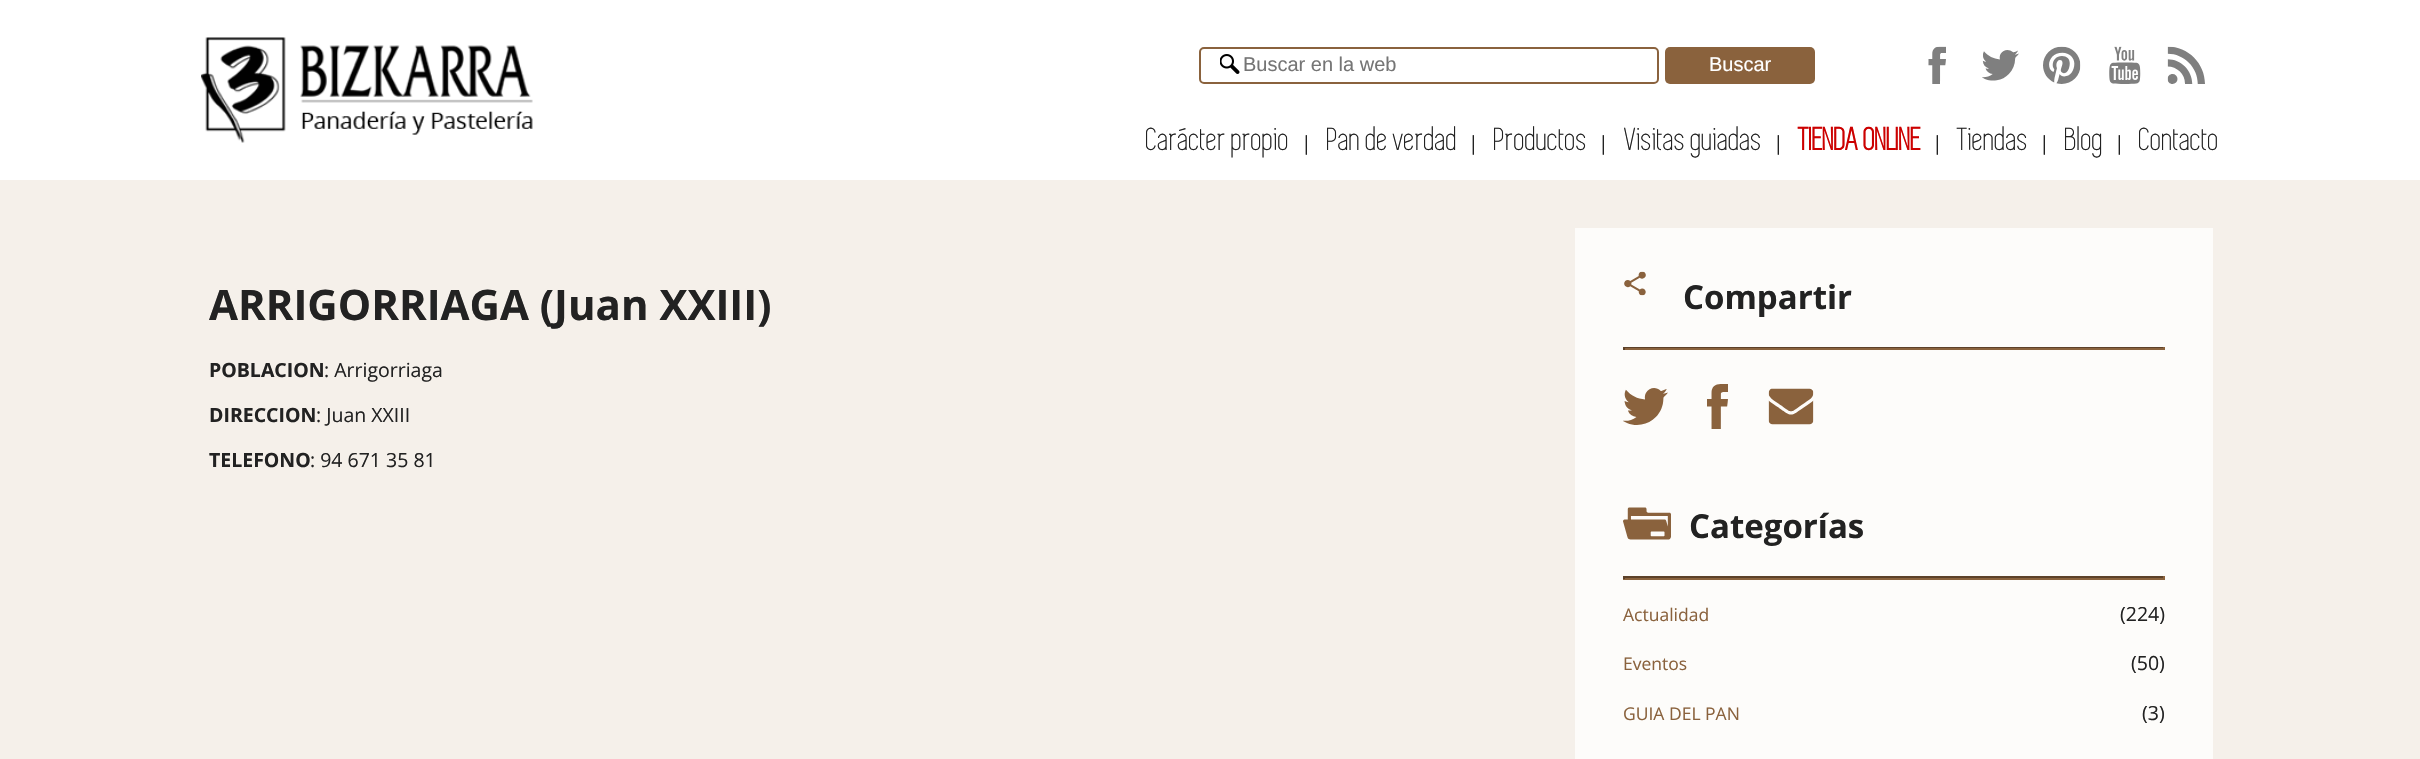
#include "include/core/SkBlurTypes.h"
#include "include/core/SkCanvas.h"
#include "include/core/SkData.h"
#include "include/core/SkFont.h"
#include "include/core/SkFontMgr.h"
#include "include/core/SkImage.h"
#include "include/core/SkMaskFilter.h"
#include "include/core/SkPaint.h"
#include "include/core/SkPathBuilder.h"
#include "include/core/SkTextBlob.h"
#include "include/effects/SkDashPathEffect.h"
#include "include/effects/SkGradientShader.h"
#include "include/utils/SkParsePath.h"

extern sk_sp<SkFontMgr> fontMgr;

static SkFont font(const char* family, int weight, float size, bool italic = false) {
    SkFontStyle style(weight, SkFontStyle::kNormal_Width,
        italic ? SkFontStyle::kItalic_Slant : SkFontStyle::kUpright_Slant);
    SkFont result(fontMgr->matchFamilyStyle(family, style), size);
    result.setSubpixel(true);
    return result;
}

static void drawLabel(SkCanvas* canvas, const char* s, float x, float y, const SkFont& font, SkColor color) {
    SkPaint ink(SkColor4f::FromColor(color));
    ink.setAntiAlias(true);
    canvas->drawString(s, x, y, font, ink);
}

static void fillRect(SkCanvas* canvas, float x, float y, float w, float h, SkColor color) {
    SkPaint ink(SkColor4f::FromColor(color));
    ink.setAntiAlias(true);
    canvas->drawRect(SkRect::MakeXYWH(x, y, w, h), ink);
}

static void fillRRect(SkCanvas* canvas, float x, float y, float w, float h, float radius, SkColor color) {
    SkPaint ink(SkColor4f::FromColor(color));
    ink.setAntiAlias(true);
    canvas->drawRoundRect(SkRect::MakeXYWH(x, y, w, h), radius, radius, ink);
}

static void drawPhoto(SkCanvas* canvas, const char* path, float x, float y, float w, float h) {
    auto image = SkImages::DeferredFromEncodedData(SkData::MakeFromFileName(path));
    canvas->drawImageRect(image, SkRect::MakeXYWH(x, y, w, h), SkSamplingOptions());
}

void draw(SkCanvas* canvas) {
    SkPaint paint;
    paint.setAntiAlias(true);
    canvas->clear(0xFFF5F0EA);
    fillRect(canvas, 0, 0, 2420, 180, 0xFFFFFFFF);
    drawPhoto(canvas, "assets/img1.png", 201, 37, 332, 106);
    drawPhoto(canvas, "assets/img2.png", 1220, 54, 20, 20);
    paint.setStroke(true);
    paint.setStrokeWidth(2);
    paint.setColor(0xFF8A623D);
    canvas->drawRoundRect(SkRect::MakeXYWH(1200, 48, 458, 35), 4, 4, paint);
    SkFont font1 = font("Liberation Sans", 400, 20);
    drawLabel(canvas, "Buscar en la web", 1243, 71, font1, 0xFF757575);
    fillRRect(canvas, 1665, 47, 150, 37, 5, 0xFF8A623D);
    drawLabel(canvas, "Buscar", 1709, 71, font1, 0xFFFFFFFF);
    drawPhoto(canvas, "assets/img3.png", 1928, 46, 18, 38);
    drawPhoto(canvas, "assets/img4.png", 1982, 50, 37, 31);
    drawPhoto(canvas, "assets/img5.png", 2043, 46, 38, 38);
    drawPhoto(canvas, "assets/img6.png", 2109, 46, 32, 38);
    drawPhoto(canvas, "assets/img7.png", 2167, 46, 38, 38);
    SkFont font2 = font("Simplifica", 400, 33);
    drawLabel(canvas, "Carácter propio", 1146, 150, font2, 0xFF222222);
    SkFont font3 = font("Open Sans", 400, 19.5f);
    drawLabel(canvas, "|", 1301, 150, font3, 0xFF222222);
    drawLabel(canvas, "Pan de verdad", 1327, 150, font2, 0xFF222222);
    drawLabel(canvas, "|", 1468, 150, font3, 0xFF222222);
    drawLabel(canvas, "Productos", 1494, 150, font2, 0xFF222222);
    drawLabel(canvas, "|", 1598, 150, font3, 0xFF222222);
    drawLabel(canvas, "Visitas guiadas", 1624, 150, font2, 0xFF222222);
    drawLabel(canvas, "|", 1773, 150, font3, 0xFF222222);
    SkFont font4 = font("Simplifica", 700, 33);
    drawLabel(canvas, "TIENDA ONLINE", 1799, 150, font4, 0xFFCC0000);
    drawLabel(canvas, "|", 1932, 150, font3, 0xFF222222);
    drawLabel(canvas, "Tiendas", 1958, 150, font2, 0xFF222222);
    drawLabel(canvas, "|", 2039, 150, font3, 0xFF222222);
    drawLabel(canvas, "Blog", 2065, 150, font2, 0xFF222222);
    drawLabel(canvas, "|", 2114, 150, font3, 0xFF222222);
    drawLabel(canvas, "Contacto", 2139, 150, font2, 0xFF222222);
    SkFont font5 = font("Open Sans", 700, 42);
    drawLabel(canvas, "ARRIGORRIAGA (Juan XXIII)", 209, 320, font5, 0xFF222222);
    SkFont font6 = font("Open Sans", 700, 19.5f);
    drawLabel(canvas, "POBLACION", 209, 377, font6, 0xFF222222);
    drawLabel(canvas, ": Arrigorriaga", 324, 377, font3, 0xFF222222);
    drawLabel(canvas, "DIRECCION", 209, 422, font6, 0xFF222222);
    drawLabel(canvas, ": Juan XXIII", 316, 422, font3, 0xFF222222);
    drawLabel(canvas, "TELEFONO", 209, 467, font6, 0xFF222222);
    drawLabel(canvas, ": 94 671 35 81", 310, 467, font3, 0xFF222222);
    fillRect(canvas, 1575, 228, 638, 531, 0xFFFDFCFA);
    drawPhoto(canvas, "assets/img8.png", 1624, 271, 22, 25);
    SkFont font7 = font("Open Sans", 700, 33);
    drawLabel(canvas, "Compartir", 1683, 309, font7, 0xFF222222);
    fillRect(canvas, 1623, 347, 542, 1, 0xFF5C4129);
    fillRect(canvas, 2163, 347, 2, 3, 0xFF8A623D);
    fillRect(canvas, 1623, 348, 542, 2, 0xFF8A623D);
    fillRect(canvas, 1623, 347, 2, 3, 0xFF5C4129);
    drawPhoto(canvas, "assets/img9.png", 1623, 388, 45, 37);
    drawPhoto(canvas, "assets/img10.png", 1707, 384, 21, 45);
    drawPhoto(canvas, "assets/img11.png", 1768, 388, 46, 37);
    drawPhoto(canvas, "assets/img12.png", 1623, 507, 48, 33);
    drawLabel(canvas, "Categorías", 1689, 538, font7, 0xFF222222);
    fillRect(canvas, 1623, 576, 542, 2, 0xFF5C4129);
    fillRect(canvas, 2163, 576, 2, 3, 0xFF8A623D);
    fillRect(canvas, 1623, 578, 542, 2, 0xFF8A623D);
    fillRect(canvas, 1623, 576, 2, 3, 0xFF5C4129);
    SkFont font8 = font("Open Sans", 400, 17.5f);
    drawLabel(canvas, "Actualidad", 1623, 621, font8, 0xFF8A623D);
    drawLabel(canvas, "(224)", 2120, 621, font3, 0xFF222222);
    drawLabel(canvas, "Eventos", 1623, 670, font8, 0xFF8A623D);
    drawLabel(canvas, "(50)", 2131, 670, font3, 0xFF222222);
    drawLabel(canvas, "GUIA DEL PAN", 1623, 720, font8, 0xFF8A623D);
    drawLabel(canvas, "(3)", 2142, 720, font3, 0xFF222222);
}
